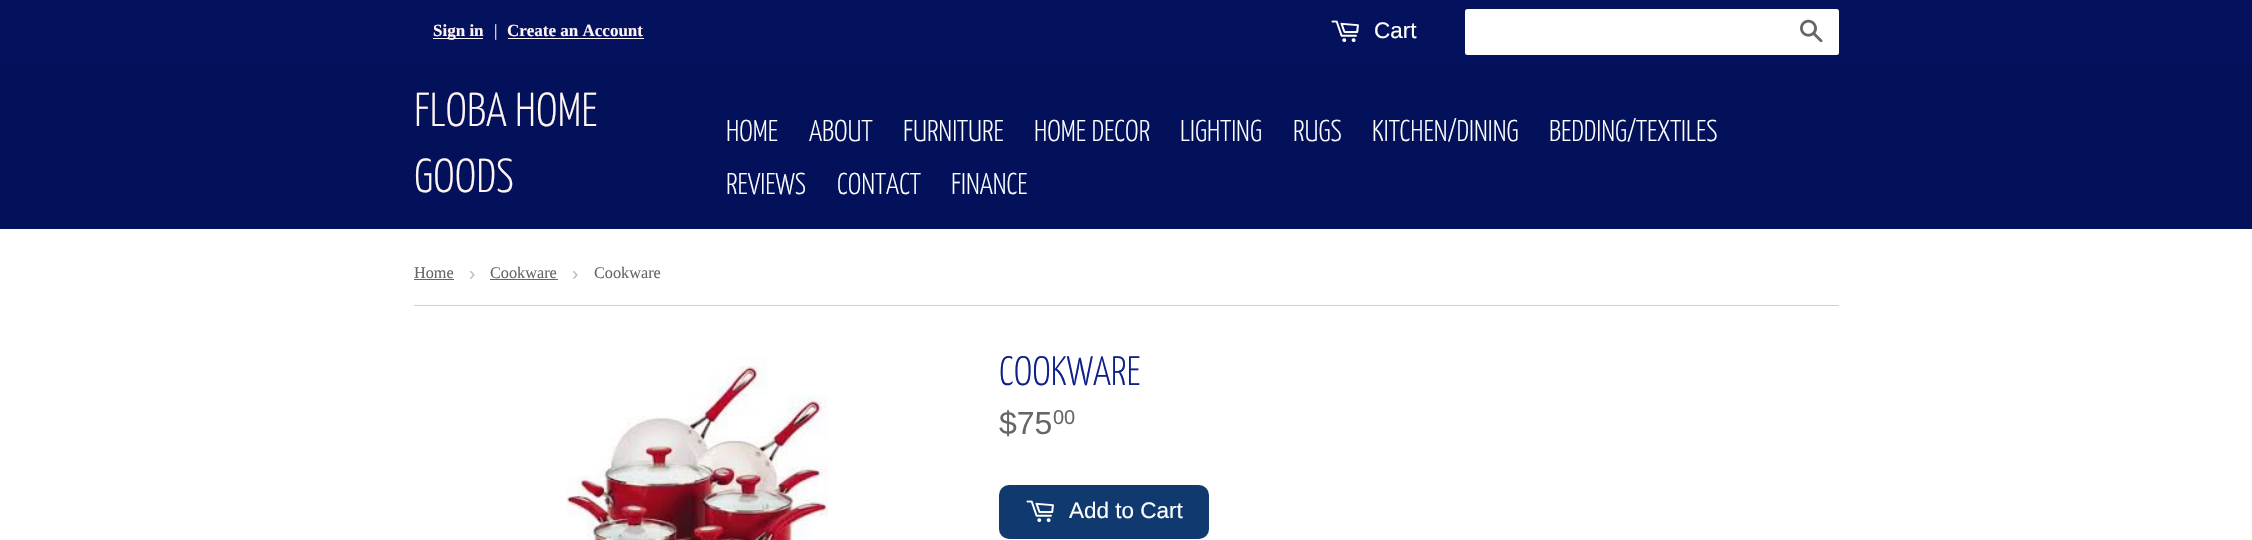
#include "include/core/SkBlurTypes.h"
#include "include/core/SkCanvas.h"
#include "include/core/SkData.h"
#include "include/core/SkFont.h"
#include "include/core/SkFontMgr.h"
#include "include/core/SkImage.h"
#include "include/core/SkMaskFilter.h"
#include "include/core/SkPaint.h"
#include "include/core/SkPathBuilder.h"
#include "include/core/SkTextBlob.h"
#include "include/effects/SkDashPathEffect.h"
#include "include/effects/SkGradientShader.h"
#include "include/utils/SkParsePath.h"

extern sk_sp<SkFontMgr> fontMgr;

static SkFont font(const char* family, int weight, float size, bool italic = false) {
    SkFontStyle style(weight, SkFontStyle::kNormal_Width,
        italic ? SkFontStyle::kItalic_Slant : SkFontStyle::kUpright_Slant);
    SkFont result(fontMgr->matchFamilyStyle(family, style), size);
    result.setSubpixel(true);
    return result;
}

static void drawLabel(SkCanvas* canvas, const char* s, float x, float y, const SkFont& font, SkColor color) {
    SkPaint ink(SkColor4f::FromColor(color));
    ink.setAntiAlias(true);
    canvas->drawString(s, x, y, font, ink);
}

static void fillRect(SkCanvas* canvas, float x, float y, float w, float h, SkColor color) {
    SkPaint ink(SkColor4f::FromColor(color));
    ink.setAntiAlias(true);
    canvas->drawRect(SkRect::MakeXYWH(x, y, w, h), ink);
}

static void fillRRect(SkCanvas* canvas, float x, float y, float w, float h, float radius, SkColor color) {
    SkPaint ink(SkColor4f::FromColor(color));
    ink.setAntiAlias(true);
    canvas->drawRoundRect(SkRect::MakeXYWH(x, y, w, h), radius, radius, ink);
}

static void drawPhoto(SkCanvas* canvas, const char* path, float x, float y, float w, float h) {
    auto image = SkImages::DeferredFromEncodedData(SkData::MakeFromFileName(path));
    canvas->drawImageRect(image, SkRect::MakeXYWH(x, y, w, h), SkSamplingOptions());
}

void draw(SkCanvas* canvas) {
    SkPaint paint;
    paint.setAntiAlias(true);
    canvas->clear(0xFFFFFFFF);
    fillRect(canvas, 0, 63, 2252, 166, 0xFF021159);
    fillRect(canvas, 0, 0, 2252, 63, 0xFF04115D);
    fillRect(canvas, 433, 38, 50, 1, 0xFFFFF4F4);
    SkFont font1 = font("Liberation Serif", 700, 17);
    drawLabel(canvas, "Sign in", 433, 36, font1, 0xFFFFF4F4);
    SkFont font2 = font("Liberation Serif", 400, 17);
    drawLabel(canvas, "|", 494, 36, font2, 0xFFFFF4F4);
    drawLabel(canvas, "Create an Account", 507, 36, font1, 0xFFFFF4F4);
    fillRect(canvas, 508, 38, 136, 1, 0xFFFFF4F4);
    drawPhoto(canvas, "assets/img1.png", 1331, 20, 28, 23);
    SkFont font3 = font("Liberation Sans", 400, 22.5f);
    drawLabel(canvas, "Cart", 1374, 38, font3, 0xFFFFFFFF);
    fillRRect(canvas, 1465, 9, 374, 46, 2.5f, 0xFFFFFFFF);
    drawPhoto(canvas, "assets/img2.png", 1800, 19, 23, 24);
    SkFont font4 = font("Yanone Kaffeesatz", 300, 47.5f);
    drawLabel(canvas, "FLOBA HOME", 414, 126, font4, 0xFFFFF4F4);
    drawLabel(canvas, "GOODS", 414, 192, font4, 0xFFFFF4F4);
    SkFont font5 = font("Yanone Kaffeesatz", 300, 30);
    drawLabel(canvas, "HOME", 726, 141, font5, 0xFFFFFFFF);
    drawLabel(canvas, "ABOUT", 809, 141, font5, 0xFFFFFFFF);
    drawLabel(canvas, "FURNITURE", 903, 141, font5, 0xFFFFFFFF);
    drawLabel(canvas, "HOME DECOR", 1034, 141, font5, 0xFFFFFFFF);
    drawLabel(canvas, "LIGHTING", 1180, 141, font5, 0xFFFFFFFF);
    drawLabel(canvas, "RUGS", 1293, 141, font5, 0xFFFFFFFF);
    drawLabel(canvas, "KITCHEN/DINING", 1372, 141, font5, 0xFFFFFFFF);
    drawLabel(canvas, "BEDDING/TEXTILES", 1549, 141, font5, 0xFFFFFFFF);
    drawLabel(canvas, "REVIEWS", 726, 194, font5, 0xFFFFFFFF);
    drawLabel(canvas, "CONTACT", 837, 194, font5, 0xFFFFFFFF);
    drawLabel(canvas, "FINANCE", 951, 194, font5, 0xFFFFFFFF);
    fillRect(canvas, 414, 305, 1425, 1, 0xFFD1CFCF);
    SkFont font6 = font("Liberation Serif", 400, 16.25f);
    drawLabel(canvas, "Home", 414, 278, font6, 0xFF666666);
    fillRect(canvas, 414, 279, 40, 1, 0xFF666666);
    SkFont font7 = font("Liberation Sans", 400, 19);
    drawLabel(canvas, "›", 469, 280, font7, 0xFFBBBBBB);
    drawLabel(canvas, "Cookware", 490, 278, font6, 0xFF666666);
    fillRect(canvas, 490, 279, 68, 1, 0xFF666666);
    drawLabel(canvas, "›", 572, 280, font7, 0xFFBBBBBB);
    drawLabel(canvas, "Cookware", 594, 278, font6, 0xFF666666);
    drawPhoto(canvas, "assets/img3.png", 566, 357, 263, 183);
    SkFont font8 = font("Yanone Kaffeesatz", 300, 41);
    drawLabel(canvas, "COOKWARE", 999, 385, font8, 0xFF0F2188);
    SkFont font9 = font("Liberation Sans", 400, 32);
    drawLabel(canvas, "$75", 999, 434, font9, 0xFF666666);
    SkFont font10 = font("Liberation Sans", 400, 20);
    drawLabel(canvas, "00", 1053, 424, font10, 0xFF666666);
    fillRRect(canvas, 999, 485, 210, 54, 10, 0xFF0F396F);
    drawPhoto(canvas, "assets/img4.png", 1026, 500, 28, 23);
    drawLabel(canvas, "Add to Cart", 1069, 518, font3, 0xFFFFFFFF);
}
